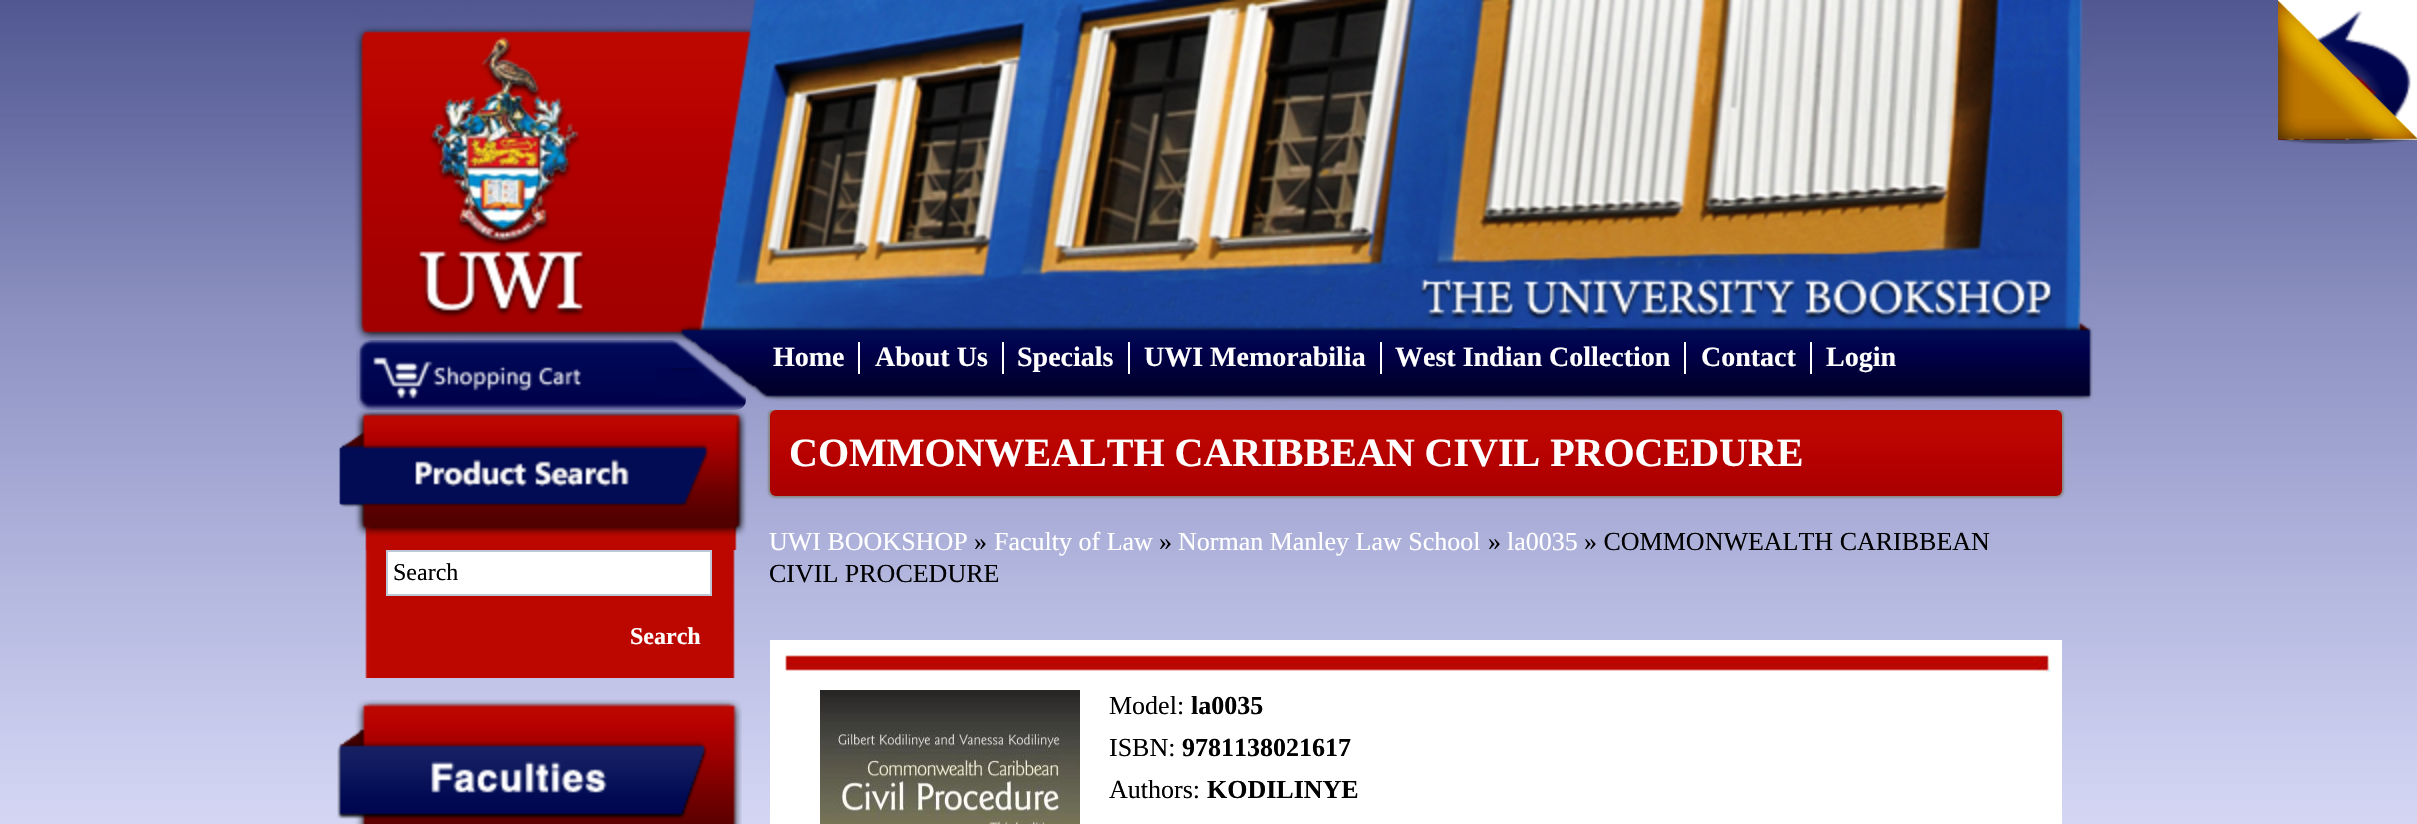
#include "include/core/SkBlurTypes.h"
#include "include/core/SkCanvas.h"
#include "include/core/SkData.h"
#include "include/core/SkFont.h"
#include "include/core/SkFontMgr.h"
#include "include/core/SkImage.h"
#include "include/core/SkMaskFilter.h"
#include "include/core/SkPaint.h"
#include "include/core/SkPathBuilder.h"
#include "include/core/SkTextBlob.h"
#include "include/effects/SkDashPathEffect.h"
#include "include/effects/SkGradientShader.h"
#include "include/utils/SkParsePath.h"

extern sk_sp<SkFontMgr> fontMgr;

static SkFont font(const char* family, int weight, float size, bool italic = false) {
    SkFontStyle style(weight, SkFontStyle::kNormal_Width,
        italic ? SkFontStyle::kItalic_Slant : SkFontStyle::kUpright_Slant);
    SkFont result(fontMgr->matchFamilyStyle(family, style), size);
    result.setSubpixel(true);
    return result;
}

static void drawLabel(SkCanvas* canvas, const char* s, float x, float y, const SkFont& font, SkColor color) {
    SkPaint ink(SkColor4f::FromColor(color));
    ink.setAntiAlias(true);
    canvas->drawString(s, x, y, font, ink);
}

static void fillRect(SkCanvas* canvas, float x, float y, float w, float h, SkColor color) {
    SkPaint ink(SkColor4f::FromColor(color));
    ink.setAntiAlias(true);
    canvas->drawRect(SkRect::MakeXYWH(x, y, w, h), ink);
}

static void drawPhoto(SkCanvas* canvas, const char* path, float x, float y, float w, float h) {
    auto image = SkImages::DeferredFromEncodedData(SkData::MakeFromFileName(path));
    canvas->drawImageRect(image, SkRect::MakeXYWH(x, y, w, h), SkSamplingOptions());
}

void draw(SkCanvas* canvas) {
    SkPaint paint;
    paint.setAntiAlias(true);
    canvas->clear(0xFFFFFFFF);
    drawPhoto(canvas, "assets/img1.png", 0, 0, 2417, 824);
    fillRect(canvas, 2278, 0, 139, 140, 0xFFFFFFFF);
    drawPhoto(canvas, "assets/img2.png", 2278, 10, 133, 130);
    drawPhoto(canvas, "assets/img3.png", 2278, 0, 139, 144);
    drawPhoto(canvas, "assets/img4.png", 354, 0, 1739, 402);
    drawPhoto(canvas, "assets/img5.png", 416, 37, 169, 281);
    drawPhoto(canvas, "assets/img6.png", 356, 340, 390, 70);
    drawPhoto(canvas, "assets/img7.png", 373, 357, 209, 42);
    SkFont font1 = font("Liberation Serif", 700, 28);
    drawLabel(canvas, "Home", 773, 366, font1, 0xFFFFFFFF);
    fillRect(canvas, 858, 342, 2, 32, 0xFFFFFFFF);
    drawLabel(canvas, "About Us", 875, 366, font1, 0xFFFFFFFF);
    fillRect(canvas, 1002, 342, 2, 32, 0xFFFFFFFF);
    drawLabel(canvas, "Specials", 1017, 366, font1, 0xFFFFFFFF);
    fillRect(canvas, 1128, 342, 2, 32, 0xFFFFFFFF);
    drawLabel(canvas, "UWI Memorabilia", 1144, 366, font1, 0xFFFFFFFF);
    fillRect(canvas, 1380, 342, 2, 32, 0xFFFFFFFF);
    drawLabel(canvas, "West Indian Collection", 1395, 366, font1, 0xFFFFFFFF);
    fillRect(canvas, 1684, 342, 2, 32, 0xFFFFFFFF);
    drawLabel(canvas, "Contact", 1701, 366, font1, 0xFFFFFFFF);
    fillRect(canvas, 1810, 342, 2, 32, 0xFFFFFFFF);
    drawLabel(canvas, "Login", 1826, 366, font1, 0xFFFFFFFF);
    drawPhoto(canvas, "assets/img8.png", 339, 410, 408, 140);
    drawPhoto(canvas, "assets/img9.png", 339, 410, 406, 130);
    drawPhoto(canvas, "assets/img10.png", 365, 540, 370, 138);
    paint.setColor(0xFFFFFFFF);
    canvas->drawRect(SkRect::MakeXYWH(387, 551, 324, 44), paint);
    paint.setStroke(true);
    paint.setStrokeWidth(2);
    paint.setColor(0xFFBDC7D8);
    canvas->drawRect(SkRect::MakeXYWH(387, 551, 324, 44), paint);
    SkFont font2 = font("Liberation Serif", 400, 24);
    drawLabel(canvas, "Search", 393, 580, font2, 0xFF000000);
    SkFont font3 = font("Liberation Serif", 700, 24);
    drawLabel(canvas, "Search", 630, 644, font3, 0xFFFFFFFF);
    drawPhoto(canvas, "assets/img11.png", 337, 699, 405, 125);
    canvas->save();
    canvas->clipRect(SkRect::MakeXYWH(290, 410, 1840, 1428));
    paint.setStroke(false);
    paint.setColor(0xFF888888);
    paint.setMaskFilter(SkMaskFilter::MakeBlur(kNormal_SkBlurStyle, 1));
    canvas->drawRoundRect(SkRect::MakeXYWH(768, 408, 1296, 90), 8, 8, paint);
    paint.setMaskFilter(nullptr);
    canvas->restore();
    drawPhoto(canvas, "assets/img12.png", 770, 410, 1292, 86);
    SkFont font4 = font("Liberation Serif", 700, 40);
    drawLabel(canvas, "COMMONWEALTH CARIBBEAN CIVIL PROCEDURE", 789, 466, font4, 0xFFFFFFFF);
    SkFont font5 = font("Liberation Serif", 400, 26);
    drawLabel(canvas, "UWI BOOKSHOP", 769, 550, font5, 0xFFFFFFFF);
    drawLabel(canvas, "»", 974, 550, font5, 0xFF000000);
    drawLabel(canvas, "Faculty of Law", 994, 550, font5, 0xFFFFFFFF);
    drawLabel(canvas, "»", 1159, 550, font5, 0xFF000000);
    drawLabel(canvas, "Norman Manley Law School", 1178, 550, font5, 0xFFFFFFFF);
    drawLabel(canvas, "»", 1488, 550, font5, 0xFF000000);
    drawLabel(canvas, "la0035", 1507, 550, font5, 0xFFFFFFFF);
    drawLabel(canvas, "» COMMONWEALTH CARIBBEAN", 1584, 550, font5, 0xFF000000);
    drawLabel(canvas, "CIVIL PROCEDURE", 769, 582, font5, 0xFF000000);
    fillRect(canvas, 770, 640, 1292, 184, 0xFFFFFFFF);
    drawPhoto(canvas, "assets/img13.png", 785, 655, 1266, 18);
    drawPhoto(canvas, "assets/img14.png", 820, 690, 260, 134);
    drawLabel(canvas, "Model:", 1109, 714, font5, 0xFF000000);
    SkFont font6 = font("Liberation Serif", 700, 26);
    drawLabel(canvas, "la0035", 1191, 714, font6, 0xFF000000);
    drawLabel(canvas, "ISBN:", 1109, 756, font5, 0xFF000000);
    drawLabel(canvas, "9781138021617", 1182, 756, font6, 0xFF000000);
    drawLabel(canvas, "Authors:", 1109, 798, font5, 0xFF000000);
    drawLabel(canvas, "KODILINYE", 1207, 798, font6, 0xFF000000);
}
